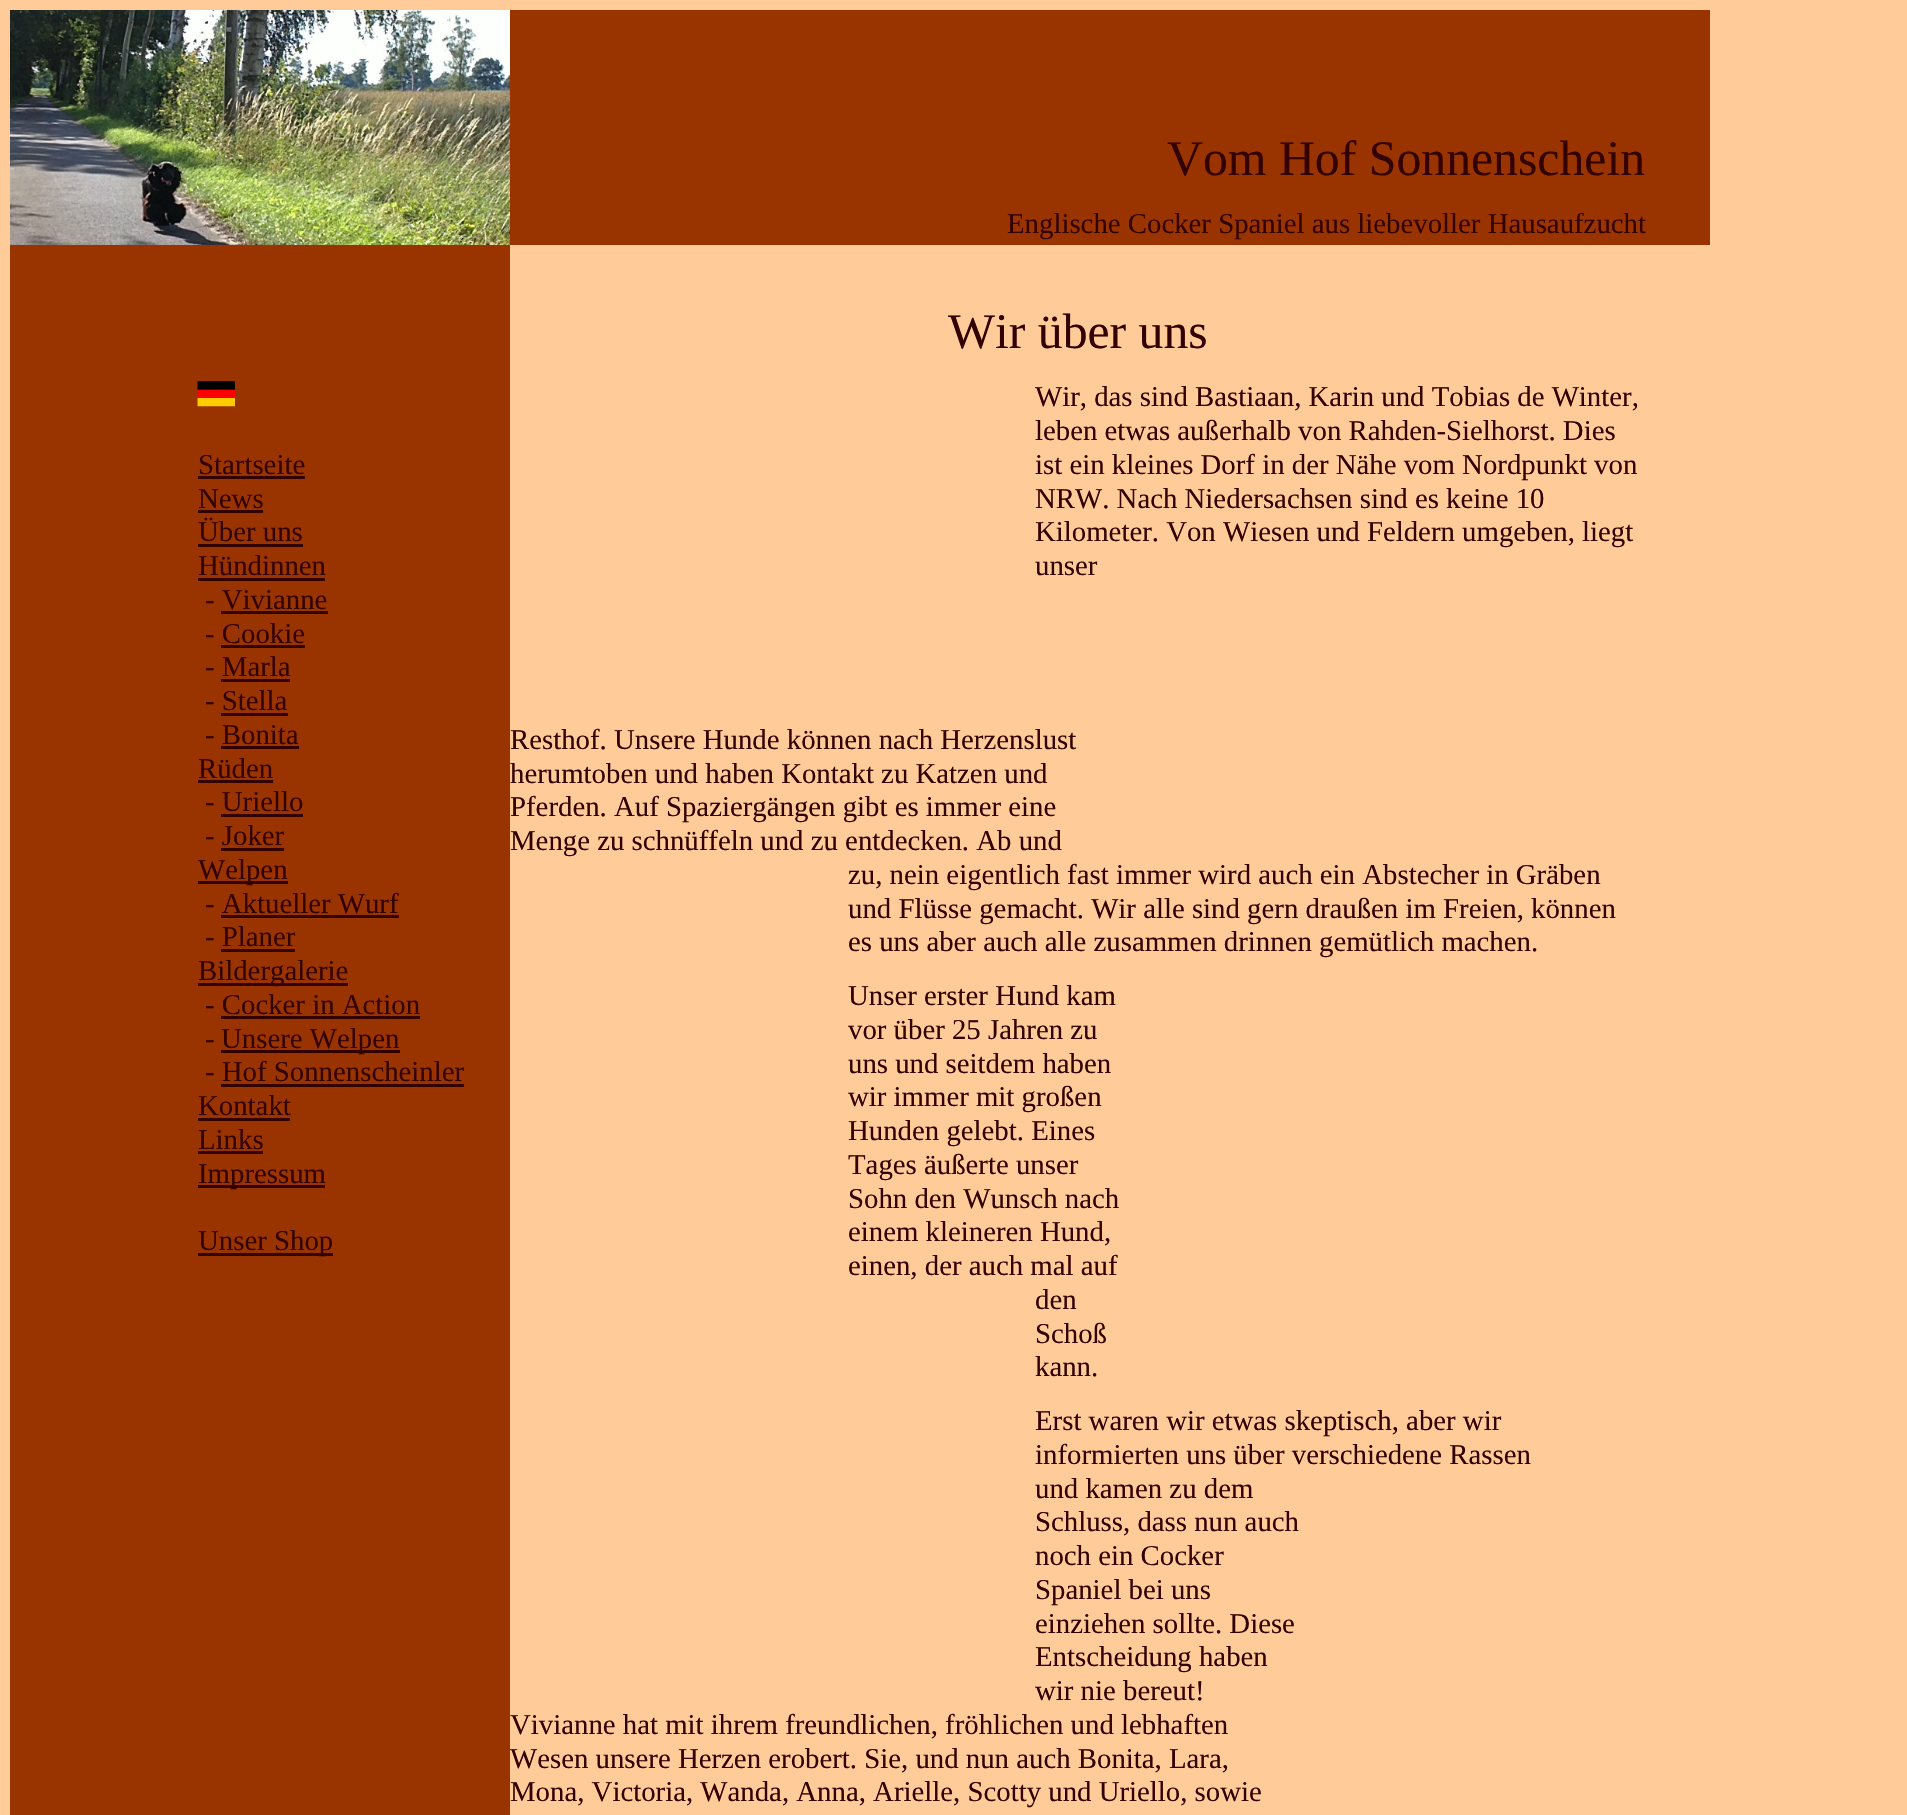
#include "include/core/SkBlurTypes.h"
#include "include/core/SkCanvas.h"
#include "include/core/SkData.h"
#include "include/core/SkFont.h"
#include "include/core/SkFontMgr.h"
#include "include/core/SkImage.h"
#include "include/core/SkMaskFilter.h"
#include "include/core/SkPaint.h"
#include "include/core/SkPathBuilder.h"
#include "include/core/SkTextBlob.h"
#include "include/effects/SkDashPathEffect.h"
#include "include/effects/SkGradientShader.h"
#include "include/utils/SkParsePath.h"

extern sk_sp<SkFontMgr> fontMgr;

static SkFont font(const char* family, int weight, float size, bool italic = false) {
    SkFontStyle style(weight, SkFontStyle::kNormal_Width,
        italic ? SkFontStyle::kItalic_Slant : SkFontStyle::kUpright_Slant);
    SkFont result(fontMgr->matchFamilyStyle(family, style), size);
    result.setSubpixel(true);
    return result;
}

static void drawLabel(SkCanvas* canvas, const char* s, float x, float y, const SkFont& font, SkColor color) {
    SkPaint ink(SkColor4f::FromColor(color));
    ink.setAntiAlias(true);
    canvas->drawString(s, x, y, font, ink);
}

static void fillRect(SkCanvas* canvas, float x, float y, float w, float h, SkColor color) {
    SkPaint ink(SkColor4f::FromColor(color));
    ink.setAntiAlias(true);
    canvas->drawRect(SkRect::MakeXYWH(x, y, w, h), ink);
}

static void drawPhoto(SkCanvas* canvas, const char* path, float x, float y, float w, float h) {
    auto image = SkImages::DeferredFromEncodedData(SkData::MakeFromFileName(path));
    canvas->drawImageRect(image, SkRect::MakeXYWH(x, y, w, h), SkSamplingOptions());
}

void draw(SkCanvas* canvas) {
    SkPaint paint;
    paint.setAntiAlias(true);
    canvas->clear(0xFFFFCC99);
    drawPhoto(canvas, "assets/img1.png", 10, 10, 500, 235);
    fillRect(canvas, 510, 10, 1200, 235, 0xFF993300);
    SkFont font1 = font("Liberation Serif", 400, 49.75f);
    drawLabel(canvas, "Vom Hof Sonnenschein", 1167, 175, font1, 0xFF330000);
    SkFont font2 = font("Liberation Serif", 400, 28.8f);
    drawLabel(canvas, "Englische Cocker Spaniel aus liebevoller Hausaufzucht", 1007, 233, font2, 0xFF330000);
    fillRect(canvas, 10, 245, 500, 1570, 0xFF993300);
    drawLabel(canvas, "Wir über uns", 948, 348, font1, 0xFF330000);
    drawLabel(canvas, "Wir, das sind Bastiaan, Karin und Tobias de Winter,", 1035, 406, font2, 0xFF330000);
    drawLabel(canvas, "leben etwas außerhalb von Rahden-Sielhorst. Dies", 1035, 440, font2, 0xFF330000);
    drawLabel(canvas, "ist ein kleines Dorf in der Nähe vom Nordpunkt von", 1035, 474, font2, 0xFF330000);
    drawLabel(canvas, "NRW. Nach Niedersachsen sind es keine 10", 1035, 508, font2, 0xFF330000);
    drawLabel(canvas, "Kilometer. Von Wiesen und Feldern umgeben, liegt", 1035, 541, font2, 0xFF330000);
    drawLabel(canvas, "unser", 1035, 575, font2, 0xFF330000);
    drawLabel(canvas, "Resthof. Unsere Hunde können nach Herzenslust", 510, 749, font2, 0xFF330000);
    drawLabel(canvas, "herumtoben und haben Kontakt zu Katzen und", 510, 783, font2, 0xFF330000);
    drawLabel(canvas, "Pferden. Auf Spaziergängen gibt es immer eine", 510, 816, font2, 0xFF330000);
    drawLabel(canvas, "Menge zu schnüffeln und zu entdecken. Ab und", 510, 850, font2, 0xFF330000);
    drawLabel(canvas, "zu, nein eigentlich fast immer wird auch ein Abstecher in Gräben", 848, 884, font2, 0xFF330000);
    drawLabel(canvas, "und Flüsse gemacht. Wir alle sind gern draußen im Freien, können", 848, 918, font2, 0xFF330000);
    drawLabel(canvas, "es uns aber auch alle zusammen drinnen gemütlich machen.", 848, 951, font2, 0xFF330000);
    drawLabel(canvas, "Unser erster Hund kam", 848, 1005, font2, 0xFF330000);
    drawLabel(canvas, "vor über 25 Jahren zu", 848, 1039, font2, 0xFF330000);
    drawLabel(canvas, "uns und seitdem haben", 848, 1073, font2, 0xFF330000);
    drawLabel(canvas, "wir immer mit großen", 848, 1106, font2, 0xFF330000);
    drawLabel(canvas, "Hunden gelebt. Eines", 848, 1140, font2, 0xFF330000);
    drawLabel(canvas, "Tages äußerte unser", 848, 1174, font2, 0xFF330000);
    drawLabel(canvas, "Sohn den Wunsch nach", 848, 1208, font2, 0xFF330000);
    drawLabel(canvas, "einem kleineren Hund,", 848, 1241, font2, 0xFF330000);
    drawLabel(canvas, "einen, der auch mal auf", 848, 1275, font2, 0xFF330000);
    drawLabel(canvas, "den", 1035, 1309, font2, 0xFF330000);
    drawLabel(canvas, "Schoß", 1035, 1343, font2, 0xFF330000);
    drawLabel(canvas, "kann.", 1035, 1376, font2, 0xFF330000);
    drawLabel(canvas, "Erst waren wir etwas skeptisch, aber wir", 1035, 1430, font2, 0xFF330000);
    drawLabel(canvas, "informierten uns über verschiedene Rassen", 1035, 1464, font2, 0xFF330000);
    drawLabel(canvas, "und kamen zu dem", 1035, 1498, font2, 0xFF330000);
    drawLabel(canvas, "Schluss, dass nun auch", 1035, 1531, font2, 0xFF330000);
    drawLabel(canvas, "noch ein Cocker", 1035, 1565, font2, 0xFF330000);
    drawLabel(canvas, "Spaniel bei uns", 1035, 1599, font2, 0xFF330000);
    drawLabel(canvas, "einziehen sollte. Diese", 1035, 1633, font2, 0xFF330000);
    drawLabel(canvas, "Entscheidung haben", 1035, 1666, font2, 0xFF330000);
    drawLabel(canvas, "wir nie bereut!", 1035, 1700, font2, 0xFF330000);
    drawLabel(canvas, "Vivianne hat mit ihrem freundlichen, fröhlichen und lebhaften", 510, 1734, font2, 0xFF330000);
    drawLabel(canvas, "Wesen unsere Herzen erobert. Sie, und nun auch Bonita, Lara,", 510, 1768, font2, 0xFF330000);
    drawLabel(canvas, "Mona, Victoria, Wanda, Anna, Arielle, Scotty und Uriello, sowie", 510, 1801, font2, 0xFF330000);
    drawPhoto(canvas, "assets/img2.png", 197, 381, 38, 26);
    drawLabel(canvas, "Startseite", 198, 474, font2, 0xFF330000);
    fillRect(canvas, 198, 476, 107, 3, 0xFF330000);
    drawLabel(canvas, "News", 198, 508, font2, 0xFF330000);
    fillRect(canvas, 198, 510, 65, 3, 0xFF330000);
    drawLabel(canvas, "Über uns", 198, 541, font2, 0xFF330000);
    fillRect(canvas, 198, 544, 105, 3, 0xFF330000);
    drawLabel(canvas, "Hündinnen", 198, 575, font2, 0xFF330000);
    fillRect(canvas, 198, 578, 127, 3, 0xFF330000);
    drawLabel(canvas, "- Vivianne", 205, 609, font2, 0xFF330000);
    fillRect(canvas, 221, 611, 107, 3, 0xFF330000);
    drawLabel(canvas, "- Cookie", 205, 643, font2, 0xFF330000);
    fillRect(canvas, 221, 645, 84, 3, 0xFF330000);
    drawLabel(canvas, "- Marla", 205, 676, font2, 0xFF330000);
    fillRect(canvas, 221, 679, 69, 3, 0xFF330000);
    drawLabel(canvas, "- Stella", 205, 710, font2, 0xFF330000);
    fillRect(canvas, 221, 713, 67, 3, 0xFF330000);
    drawLabel(canvas, "- Bonita", 205, 744, font2, 0xFF330000);
    fillRect(canvas, 221, 746, 78, 3, 0xFF330000);
    drawLabel(canvas, "Rüden", 198, 778, font2, 0xFF330000);
    fillRect(canvas, 198, 780, 75, 3, 0xFF330000);
    drawLabel(canvas, "- Uriello", 205, 811, font2, 0xFF330000);
    fillRect(canvas, 221, 814, 82, 3, 0xFF330000);
    drawLabel(canvas, "- Joker", 205, 845, font2, 0xFF330000);
    fillRect(canvas, 221, 848, 63, 3, 0xFF330000);
    fillRect(canvas, 198, 881, 90, 3, 0xFF330000);
    drawLabel(canvas, "Welpen", 198, 879, font2, 0xFF330000);
    drawLabel(canvas, "- Aktueller Wurf", 205, 913, font2, 0xFF330000);
    fillRect(canvas, 221, 915, 178, 3, 0xFF330000);
    drawLabel(canvas, "- Planer", 205, 946, font2, 0xFF330000);
    fillRect(canvas, 221, 949, 74, 3, 0xFF330000);
    fillRect(canvas, 198, 983, 150, 3, 0xFF330000);
    drawLabel(canvas, "Bildergalerie", 198, 980, font2, 0xFF330000);
    drawLabel(canvas, "- Cocker in Action", 205, 1014, font2, 0xFF330000);
    fillRect(canvas, 221, 1016, 199, 3, 0xFF330000);
    drawLabel(canvas, "-", 205, 1048, font2, 0xFF330000);
    fillRect(canvas, 221, 1050, 179, 3, 0xFF330000);
    drawLabel(canvas, "Unsere Welpen", 221, 1048, font2, 0xFF330000);
    drawLabel(canvas, "- Hof Sonnenscheinler", 205, 1081, font2, 0xFF330000);
    fillRect(canvas, 221, 1084, 243, 3, 0xFF330000);
    drawLabel(canvas, "Kontakt", 198, 1115, font2, 0xFF330000);
    fillRect(canvas, 198, 1118, 92, 3, 0xFF330000);
    drawLabel(canvas, "Links", 198, 1149, font2, 0xFF330000);
    fillRect(canvas, 198, 1151, 65, 3, 0xFF330000);
    fillRect(canvas, 198, 1185, 127, 3, 0xFF330000);
    drawLabel(canvas, "Impressum", 198, 1183, font2, 0xFF330000);
    fillRect(canvas, 198, 1253, 135, 3, 0xFF330000);
    drawLabel(canvas, "Unser Shop", 198, 1250, font2, 0xFF330000);
}
